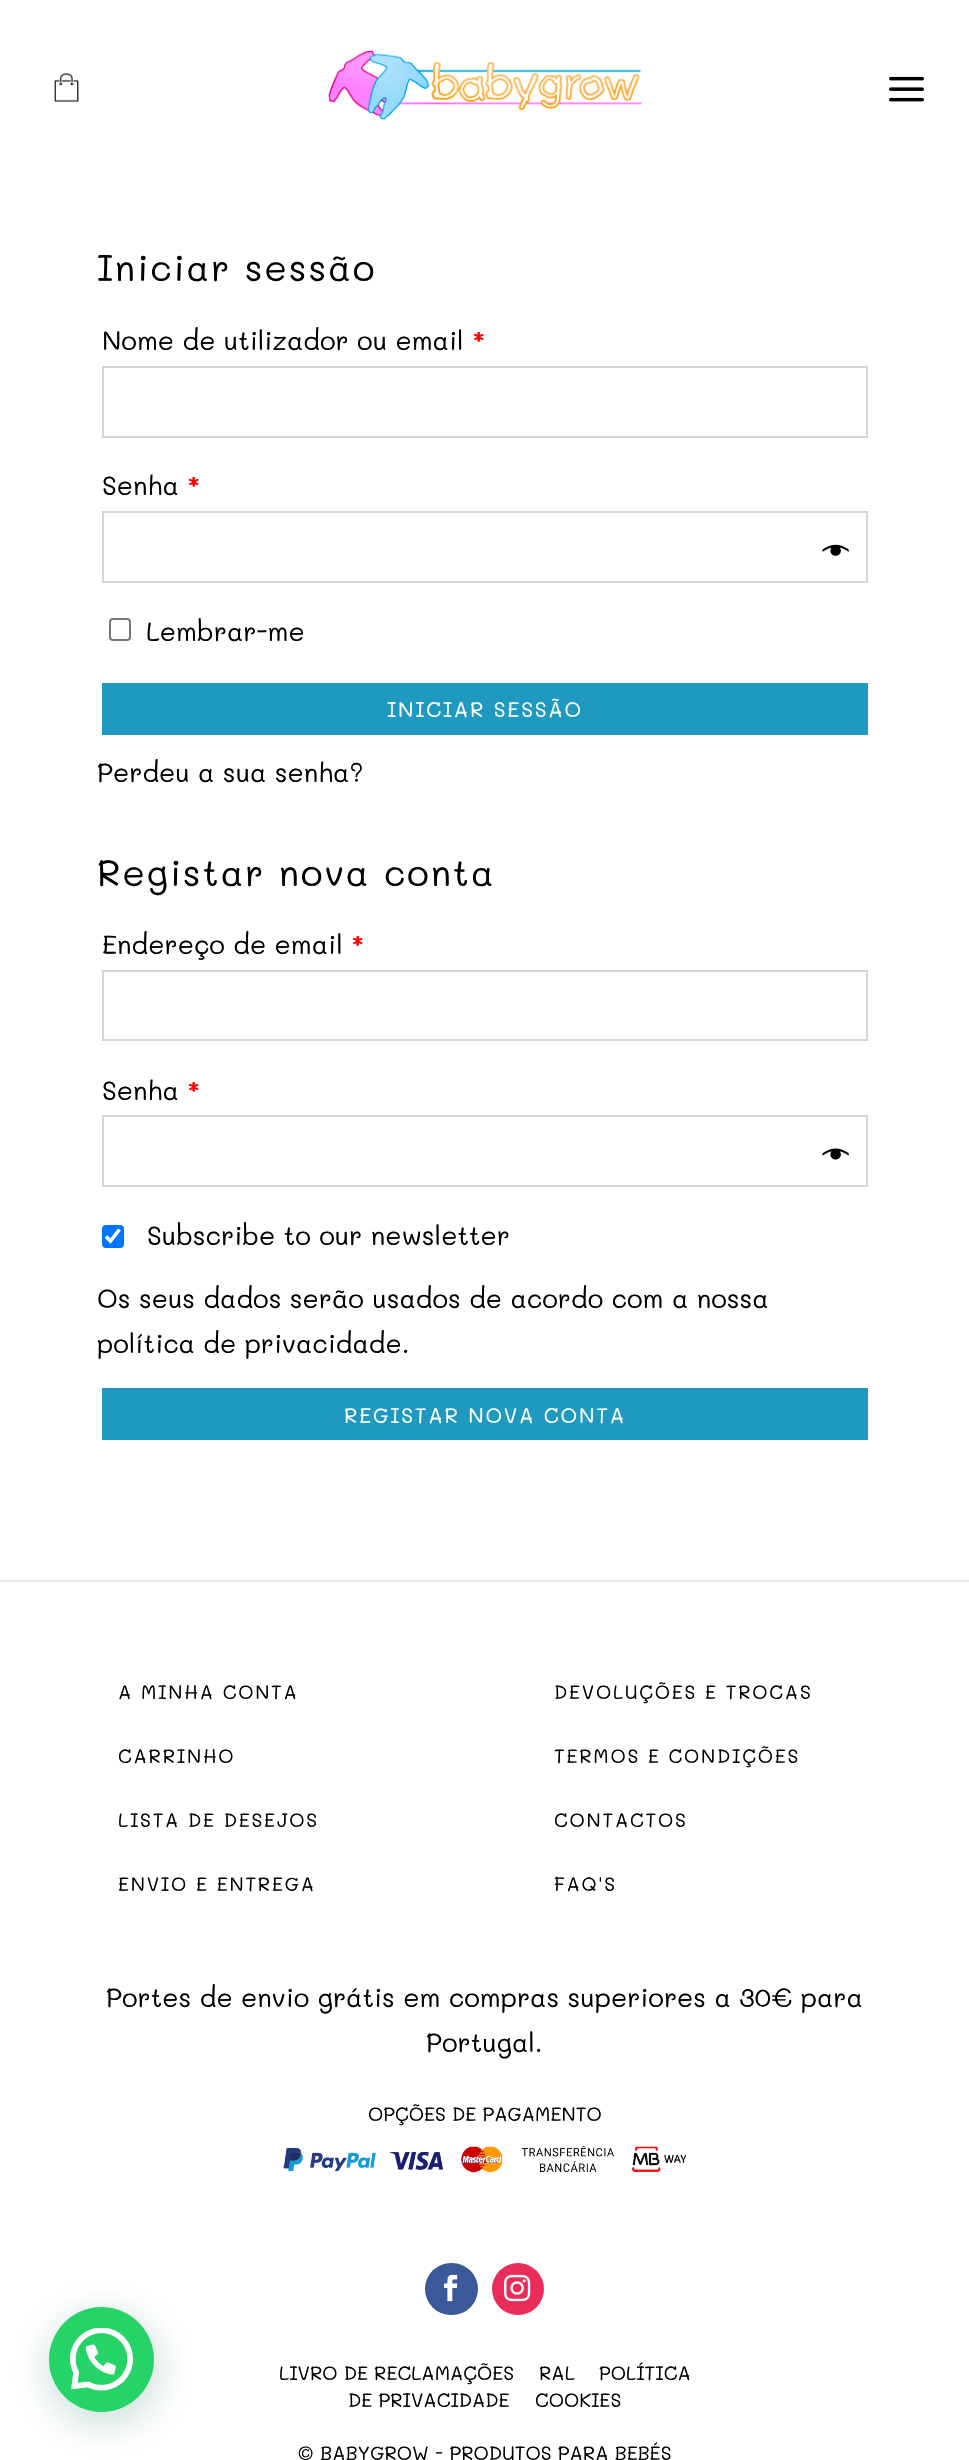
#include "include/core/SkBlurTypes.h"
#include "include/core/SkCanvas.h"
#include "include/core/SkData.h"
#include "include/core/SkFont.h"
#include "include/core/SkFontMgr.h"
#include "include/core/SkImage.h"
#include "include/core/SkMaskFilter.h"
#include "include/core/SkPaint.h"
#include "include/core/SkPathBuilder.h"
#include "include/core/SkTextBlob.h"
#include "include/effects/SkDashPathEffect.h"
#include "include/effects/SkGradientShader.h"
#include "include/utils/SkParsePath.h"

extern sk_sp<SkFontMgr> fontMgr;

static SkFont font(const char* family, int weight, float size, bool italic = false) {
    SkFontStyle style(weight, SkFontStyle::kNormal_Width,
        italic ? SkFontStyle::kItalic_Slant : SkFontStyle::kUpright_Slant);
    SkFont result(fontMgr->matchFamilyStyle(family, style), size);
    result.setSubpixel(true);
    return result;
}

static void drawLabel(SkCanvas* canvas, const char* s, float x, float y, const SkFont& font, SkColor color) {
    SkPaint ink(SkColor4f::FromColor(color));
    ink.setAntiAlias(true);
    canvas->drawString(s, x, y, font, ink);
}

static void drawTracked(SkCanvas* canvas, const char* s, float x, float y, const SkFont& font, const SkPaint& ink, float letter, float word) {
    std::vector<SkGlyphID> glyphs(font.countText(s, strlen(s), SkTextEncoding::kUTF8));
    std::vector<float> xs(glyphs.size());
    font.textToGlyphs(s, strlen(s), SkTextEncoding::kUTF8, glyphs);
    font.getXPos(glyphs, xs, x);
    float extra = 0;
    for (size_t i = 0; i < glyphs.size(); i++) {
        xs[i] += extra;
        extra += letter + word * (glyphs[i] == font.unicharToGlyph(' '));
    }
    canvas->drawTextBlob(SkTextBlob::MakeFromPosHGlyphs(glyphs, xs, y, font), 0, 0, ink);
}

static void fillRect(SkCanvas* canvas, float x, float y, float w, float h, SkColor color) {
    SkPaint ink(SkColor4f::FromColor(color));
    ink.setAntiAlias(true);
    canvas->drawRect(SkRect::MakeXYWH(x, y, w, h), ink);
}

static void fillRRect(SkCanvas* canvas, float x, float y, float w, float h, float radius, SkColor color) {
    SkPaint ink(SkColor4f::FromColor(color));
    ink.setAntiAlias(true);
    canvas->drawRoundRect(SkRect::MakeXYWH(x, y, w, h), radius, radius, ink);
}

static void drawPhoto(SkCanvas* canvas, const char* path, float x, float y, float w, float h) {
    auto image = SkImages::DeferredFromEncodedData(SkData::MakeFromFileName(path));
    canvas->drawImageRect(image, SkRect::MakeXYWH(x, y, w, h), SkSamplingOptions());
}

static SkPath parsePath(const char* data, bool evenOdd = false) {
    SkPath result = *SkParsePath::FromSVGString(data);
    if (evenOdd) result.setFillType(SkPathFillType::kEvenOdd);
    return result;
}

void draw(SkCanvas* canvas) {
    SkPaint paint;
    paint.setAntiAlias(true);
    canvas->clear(0xFFFFFFFF);
    drawPhoto(canvas, "assets/img1.png", 54, 73, 25, 29);
    drawPhoto(canvas, "assets/img2.png", 328, 50, 314, 70);
    drawPhoto(canvas, "assets/img3.png", 889, 76, 35, 26);
    SkFont font1 = font("Mali", 400, 36.75f);
    paint.setColor(0xFF000000);
    drawTracked(canvas, "Iniciar sessão", 97, 281, font1, paint, 1.75f, 0);
    SkFont font2 = font("Mali", 400, 26.25f);
    drawLabel(canvas, "Nome de utilizador ou email", 102, 350, font2, 0xFF000000);
    SkFont font3 = font("Mali", 700, 26.25f);
    drawLabel(canvas, "*", 472, 350, font3, 0xFFFF0000);
    paint.setStroke(true);
    paint.setStrokeWidth(2);
    paint.setColor(0xFFD5D5D5);
    canvas->drawRect(SkRect::MakeXYWH(103, 367, 764, 70), paint);
    drawLabel(canvas, "Senha", 102, 495, font2, 0xFF000000);
    drawLabel(canvas, "*", 187, 495, font3, 0xFFFF0000);
    canvas->drawRect(SkRect::MakeXYWH(103, 512, 764, 70), paint);
    drawPhoto(canvas, "assets/img4.png", 822, 544, 27, 12);
    paint.setColor(0xFF767676);
    canvas->drawRoundRect(SkRect::MakeXYWH(110, 619, 20, 21), 3, 3, paint);
    drawLabel(canvas, "Lembrar-me", 146, 641, font2, 0xFF000000);
    fillRect(canvas, 102, 683, 766, 52, 0xFF2099C0);
    SkFont font4 = font("Mali", 400, 21);
    paint.setStroke(false);
    paint.setColor(0xFFFFFFFF);
    drawTracked(canvas, "INICIAR SESSÃO", 387, 717, font4, paint, 1.75f, 0);
    drawLabel(canvas, "Perdeu a sua senha?", 97, 782, font2, 0xFF000000);
    paint.setColor(0xFF000000);
    drawTracked(canvas, "Registar nova conta", 97, 886, font1, paint, 1.75f, 0);
    drawLabel(canvas, "Endereço de email", 102, 954, font2, 0xFF000000);
    drawLabel(canvas, "*", 351, 954, font3, 0xFFFF0000);
    paint.setStroke(true);
    paint.setColor(0xFFD5D5D5);
    canvas->drawRect(SkRect::MakeXYWH(103, 971, 764, 69), paint);
    drawLabel(canvas, "Senha", 102, 1100, font2, 0xFF000000);
    drawLabel(canvas, "*", 187, 1100, font3, 0xFFFF0000);
    canvas->drawRect(SkRect::MakeXYWH(103, 1116, 764, 70), paint);
    drawPhoto(canvas, "assets/img5.png", 822, 1148, 27, 12);
    fillRRect(canvas, 102, 1225, 22, 23, 4, 0xFF0075FF);
    paint.setStrokeWidth(3.6f);
    paint.setColor(0xFFFFFFFF);
    canvas->drawPath(parsePath("M106 1236.5L110.5 1241L119.5 1229.5"), paint);
    drawLabel(canvas, "Subscribe to our newsletter", 147, 1245, font2, 0xFF000000);
    drawLabel(canvas, "Os seus dados serão usados de acordo com a nossa", 97, 1308, font2, 0xFF000000);
    drawLabel(canvas, "política de privacidade.", 97, 1353, font2, 0xFF000000);
    fillRect(canvas, 102, 1388, 766, 52, 0xFF2099C0);
    paint.setStroke(false);
    drawTracked(canvas, "REGISTAR NOVA CONTA", 344, 1423, font4, paint, 1.75f, 0);
    fillRect(canvas, 0, 1580, 969, 2, 0xFFE6E6E6);
    SkFont font5 = font("Mali", 400, 19.25f);
    paint.setColor(0xFF000000);
    drawTracked(canvas, "A MINHA CONTA", 118, 1699, font5, paint, 1.75f, 0);
    drawTracked(canvas, "CARRINHO", 118, 1763, font5, paint, 1.75f, 0);
    drawTracked(canvas, "LISTA DE DESEJOS", 118, 1827, font5, paint, 1.75f, 0);
    drawTracked(canvas, "ENVIO E ENTREGA", 118, 1891, font5, paint, 1.75f, 0);
    drawTracked(canvas, "DEVOLUÇÕES E TROCAS", 554, 1699, font5, paint, 1.75f, 0);
    drawTracked(canvas, "TERMOS E CONDIÇÕES", 554, 1763, font5, paint, 1.75f, 0);
    drawTracked(canvas, "CONTACTOS", 554, 1827, font5, paint, 1.75f, 0);
    drawTracked(canvas, "FAQ'S", 554, 1891, font5, paint, 1.75f, 0);
    drawLabel(canvas, "Portes de envio grátis em compras superiores a 30€ para", 106, 2007, font2, 0xFF000000);
    drawLabel(canvas, "Portugal.", 426, 2052, font2, 0xFF000000);
    drawLabel(canvas, "OPÇÕES DE PAGAMENTO", 368, 2121, font5, 0xFF000000);
    drawPhoto(canvas, "assets/img6.png", 283, 2146, 403, 27);
    fillRRect(canvas, 425, 2263, 53, 52, 26, 0xFF3B5998);
    drawPhoto(canvas, "assets/img7.png", 444, 2274, 14, 28);
    paint.setColor(0xFFEA2C59);
    canvas->drawCircle(518, 2289, 26, paint);
    drawPhoto(canvas, "assets/img8.png", 504, 2274, 27, 28);
    drawLabel(canvas, "LIVRO DE RECLAMAÇÕES", 279, 2380, font5, 0xFF000000);
    drawLabel(canvas, "RAL", 539, 2380, font5, 0xFF000000);
    drawLabel(canvas, "POLÍTICA", 599, 2380, font5, 0xFF000000);
    drawLabel(canvas, "DE PRIVACIDADE", 348, 2407, font5, 0xFF000000);
    drawLabel(canvas, "COOKIES", 535, 2407, font5, 0xFF000000);
    drawLabel(canvas, "© BABYGROW - PRODUTOS PARA BEBÉS", 297, 2460, font5, 0xFF000000);
    paint.setColor(0x3D075E54);
    paint.setMaskFilter(SkMaskFilter::MakeBlur(kNormal_SkBlurStyle, 21));
    canvas->drawRoundRect(SkRect::MakeXYWH(51, 2317, 105, 105), 52.5f, 52.5f, paint);
    paint.setMaskFilter(nullptr);
    paint.setColor(0xFF25D366);
    canvas->drawCircle(101.5f, 2359.5f, 52.5f, paint);
    drawPhoto(canvas, "assets/img9.png", 70, 2328, 63, 63);
}
